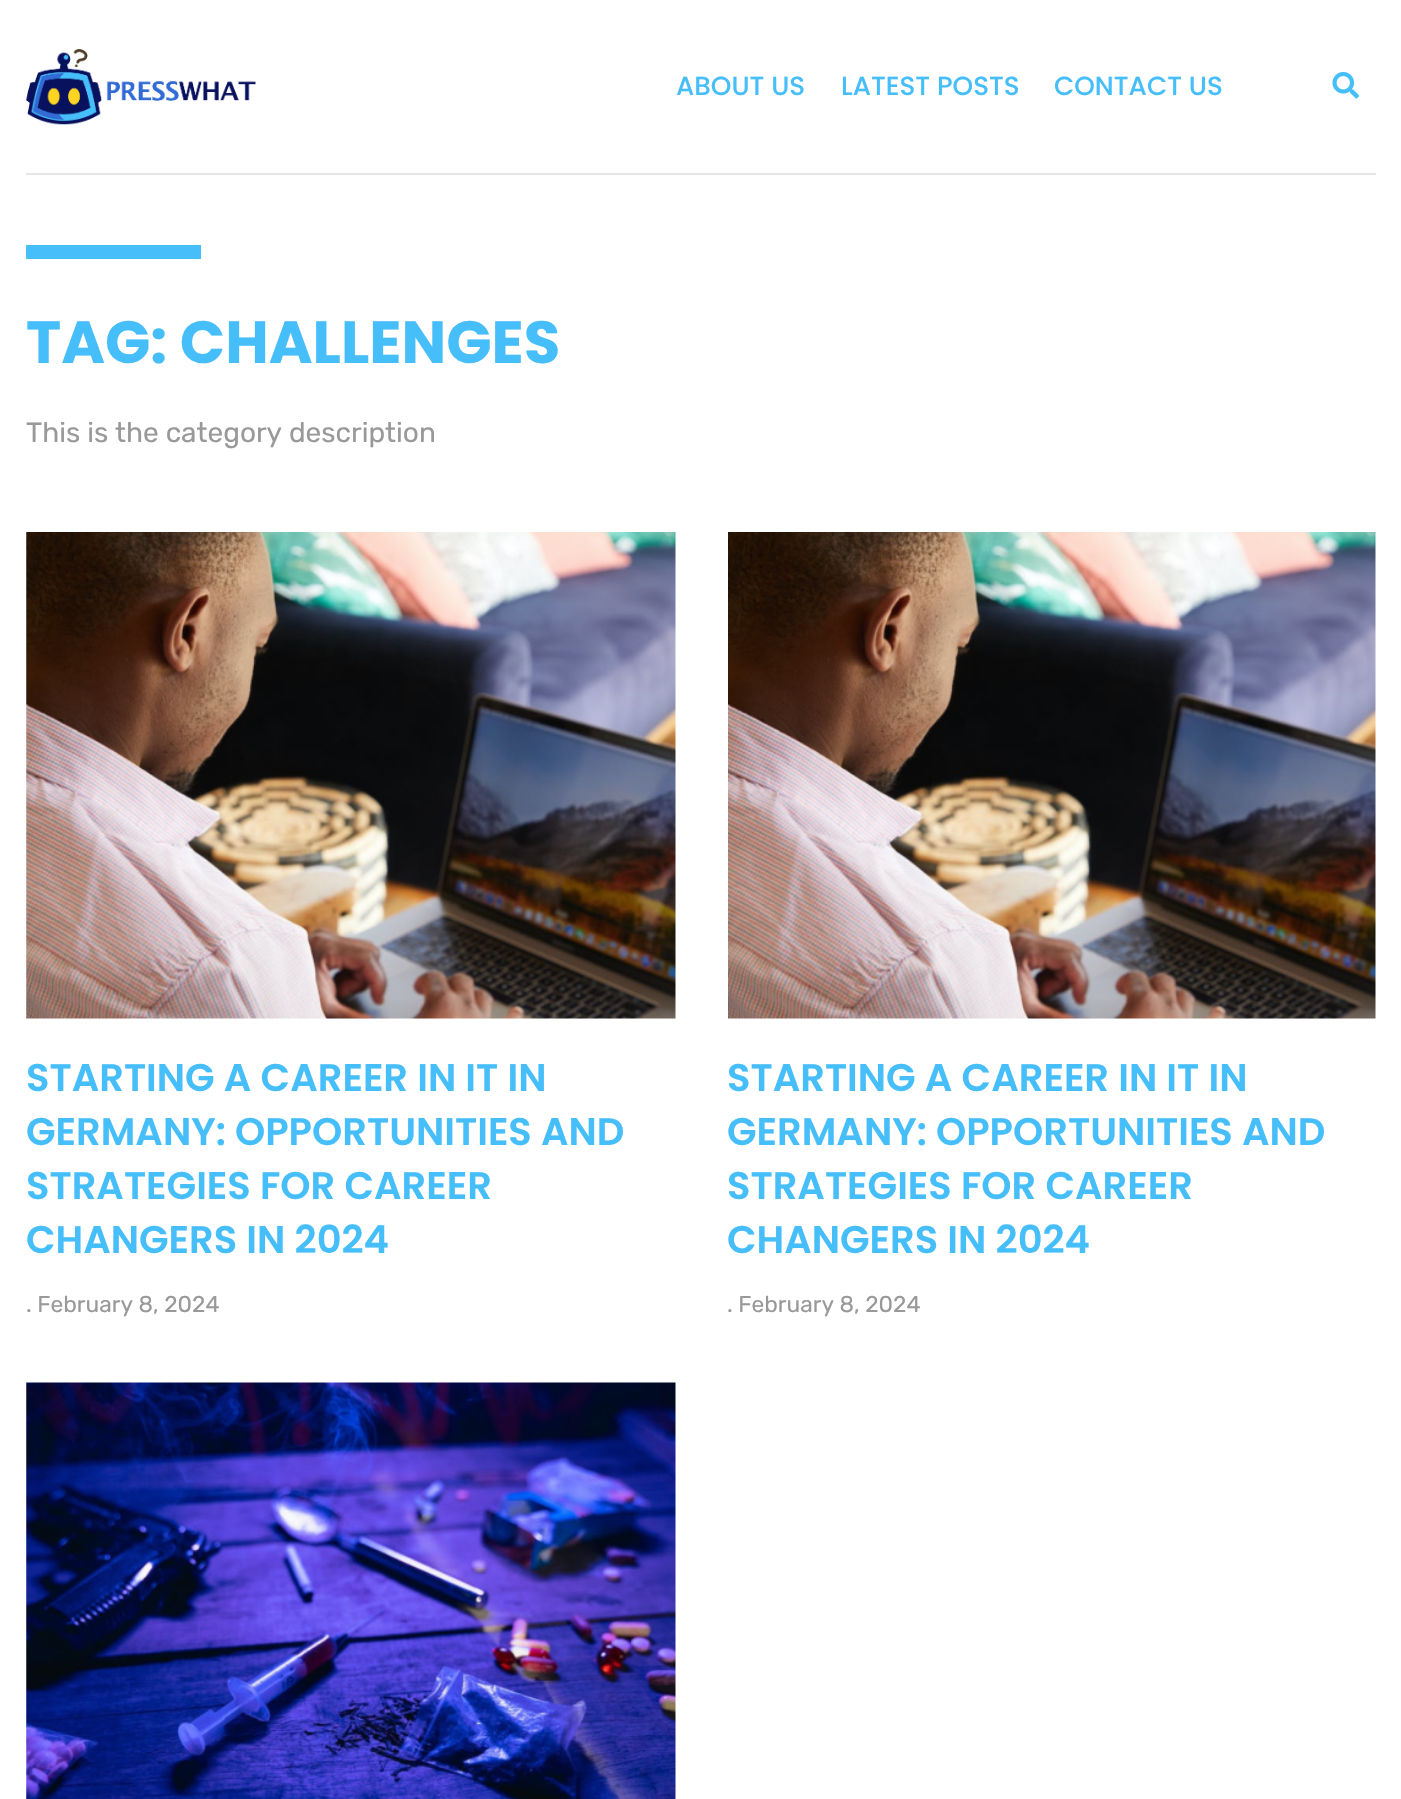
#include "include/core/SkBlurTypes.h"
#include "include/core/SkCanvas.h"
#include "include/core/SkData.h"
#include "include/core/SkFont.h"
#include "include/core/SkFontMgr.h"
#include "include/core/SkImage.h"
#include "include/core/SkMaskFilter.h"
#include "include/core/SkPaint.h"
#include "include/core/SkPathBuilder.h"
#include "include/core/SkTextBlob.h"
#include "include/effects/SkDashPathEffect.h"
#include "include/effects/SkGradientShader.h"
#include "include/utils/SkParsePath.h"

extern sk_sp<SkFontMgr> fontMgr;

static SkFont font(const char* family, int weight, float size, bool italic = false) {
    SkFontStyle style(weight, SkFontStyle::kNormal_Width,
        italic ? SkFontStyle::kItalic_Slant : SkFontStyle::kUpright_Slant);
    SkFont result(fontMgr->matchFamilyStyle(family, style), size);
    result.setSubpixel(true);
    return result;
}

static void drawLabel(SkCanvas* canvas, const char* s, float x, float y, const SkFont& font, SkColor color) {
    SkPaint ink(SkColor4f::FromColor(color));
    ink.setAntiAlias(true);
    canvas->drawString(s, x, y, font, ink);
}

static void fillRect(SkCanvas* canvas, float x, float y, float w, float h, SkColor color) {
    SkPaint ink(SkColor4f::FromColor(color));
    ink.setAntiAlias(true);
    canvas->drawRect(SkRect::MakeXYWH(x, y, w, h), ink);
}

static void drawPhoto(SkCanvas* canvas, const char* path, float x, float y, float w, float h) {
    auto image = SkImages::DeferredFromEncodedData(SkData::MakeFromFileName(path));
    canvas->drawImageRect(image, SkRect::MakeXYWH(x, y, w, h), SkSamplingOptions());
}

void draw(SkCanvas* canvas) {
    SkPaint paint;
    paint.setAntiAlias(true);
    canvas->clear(0xFFFFFFFF);
    drawPhoto(canvas, "assets/img1.png", 26, 49, 230, 76);
    SkFont font1 = font("Poppins", 500, 26.25f);
    drawLabel(canvas, "ABOUT US", 676, 95, font1, 0xFF46BEFA);
    drawLabel(canvas, "LATEST POSTS", 841, 95, font1, 0xFF46BEFA);
    drawLabel(canvas, "CONTACT US", 1054, 95, font1, 0xFF46BEFA);
    drawPhoto(canvas, "assets/img2.png", 1332, 72, 27, 27);
    fillRect(canvas, 26, 173, 1350, 2, 0xFFE6E6E6);
    fillRect(canvas, 26, 245, 175, 14, 0xFF46BEFA);
    SkFont font2 = font("Poppins", 700, 59.5f);
    drawLabel(canvas, "TAG: CHALLENGES", 26, 363, font2, 0xFF46BEFA);
    SkFont font3 = font("Rubik", 400, 28);
    drawLabel(canvas, "This is the category description", 26, 442, font3, 0xFF999999);
    drawPhoto(canvas, "assets/img3.png", 26, 532, 650, 487);
    SkFont font4 = font("Poppins", 600, 38.5f);
    drawLabel(canvas, "STARTING A CAREER IN IT IN", 26, 1091, font4, 0xFF46BEFA);
    drawLabel(canvas, "GERMANY: OPPORTUNITIES AND", 26, 1145, font4, 0xFF46BEFA);
    drawLabel(canvas, "STRATEGIES FOR CAREER", 26, 1199, font4, 0xFF46BEFA);
    drawLabel(canvas, "CHANGERS IN 2024", 26, 1253, font4, 0xFF46BEFA);
    SkFont font5 = font("Rubik", 400, 22.75f);
    drawLabel(canvas, ". February 8, 2024", 26, 1312, font5, 0xFF999999);
    drawPhoto(canvas, "assets/img4.png", 728, 532, 648, 487);
    drawLabel(canvas, "STARTING A CAREER IN IT IN", 727, 1091, font4, 0xFF46BEFA);
    drawLabel(canvas, "GERMANY: OPPORTUNITIES AND", 727, 1145, font4, 0xFF46BEFA);
    drawLabel(canvas, "STRATEGIES FOR CAREER", 727, 1199, font4, 0xFF46BEFA);
    drawLabel(canvas, "CHANGERS IN 2024", 727, 1253, font4, 0xFF46BEFA);
    drawLabel(canvas, ". February 8, 2024", 727, 1312, font5, 0xFF999999);
    drawPhoto(canvas, "assets/img5.png", 26, 1382, 650, 417);
}
